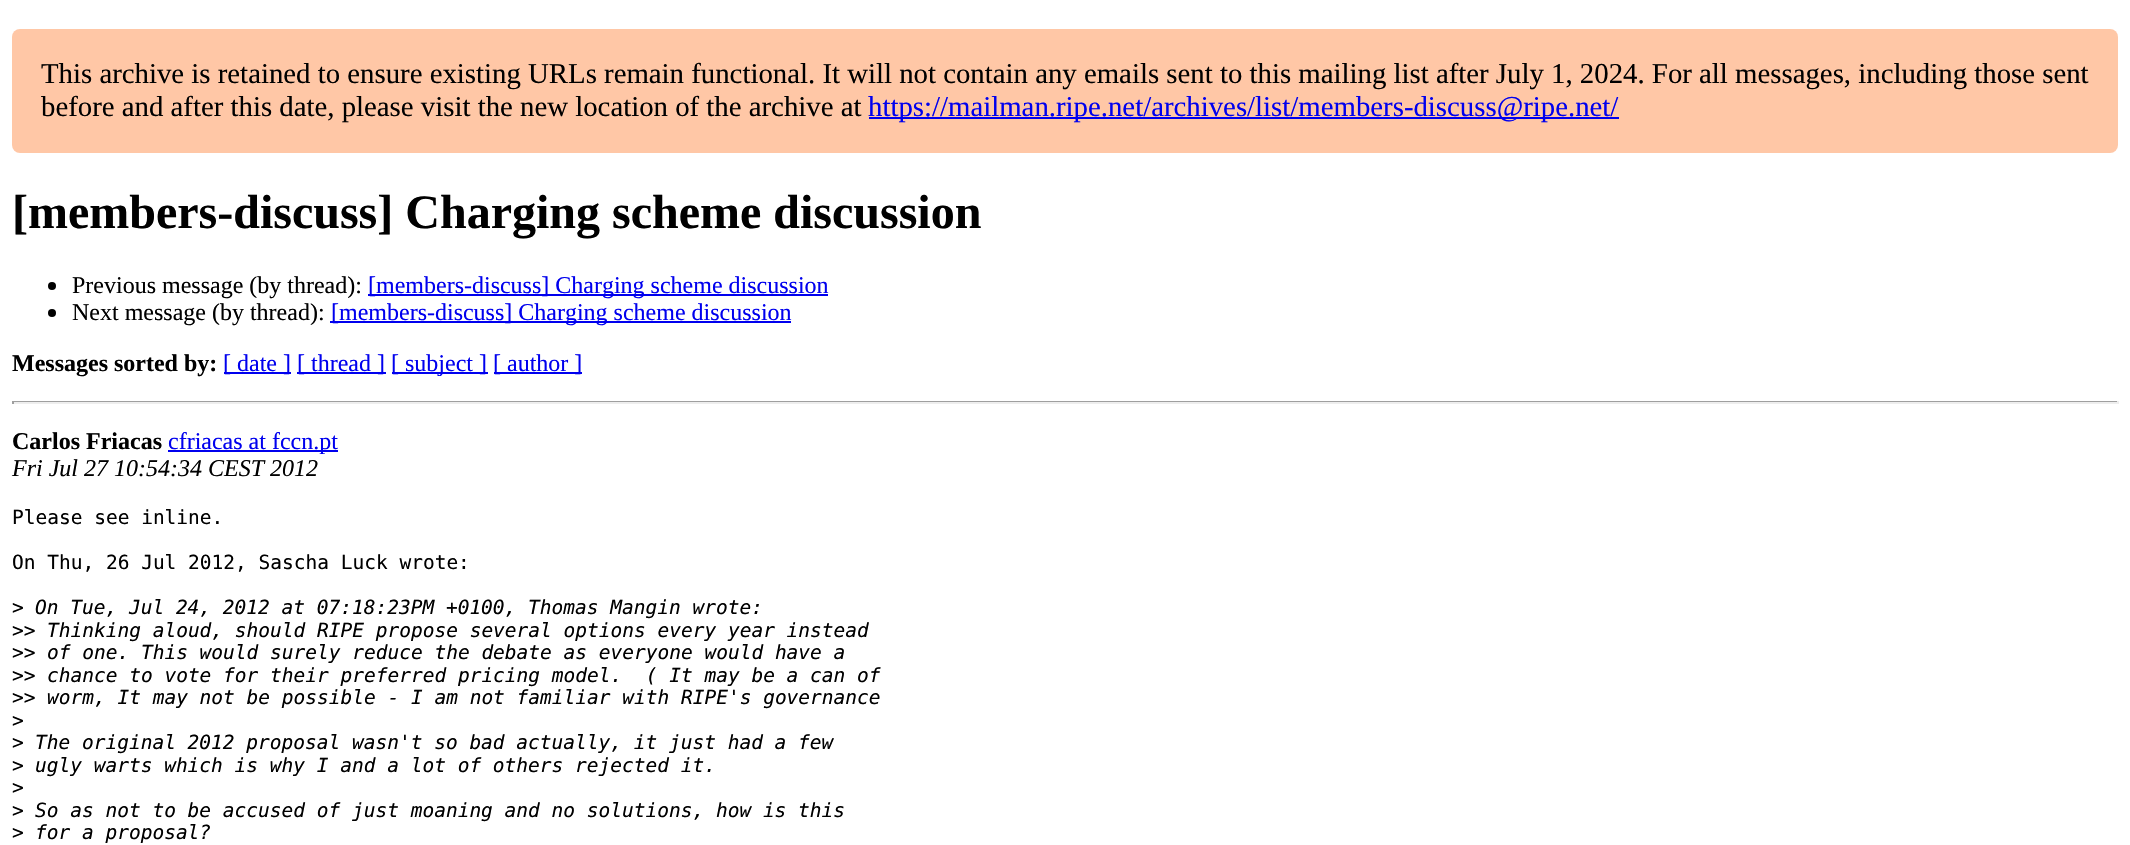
#include "include/core/SkBlurTypes.h"
#include "include/core/SkCanvas.h"
#include "include/core/SkData.h"
#include "include/core/SkFont.h"
#include "include/core/SkFontMgr.h"
#include "include/core/SkImage.h"
#include "include/core/SkMaskFilter.h"
#include "include/core/SkPaint.h"
#include "include/core/SkPathBuilder.h"
#include "include/core/SkTextBlob.h"
#include "include/effects/SkDashPathEffect.h"
#include "include/effects/SkGradientShader.h"
#include "include/utils/SkParsePath.h"

extern sk_sp<SkFontMgr> fontMgr;

static SkFont font(const char* family, int weight, float size, bool italic = false) {
    SkFontStyle style(weight, SkFontStyle::kNormal_Width,
        italic ? SkFontStyle::kItalic_Slant : SkFontStyle::kUpright_Slant);
    SkFont result(fontMgr->matchFamilyStyle(family, style), size);
    result.setSubpixel(true);
    return result;
}

static void drawLabel(SkCanvas* canvas, const char* s, float x, float y, const SkFont& font, SkColor color) {
    SkPaint ink(SkColor4f::FromColor(color));
    ink.setAntiAlias(true);
    canvas->drawString(s, x, y, font, ink);
}

static void fillRect(SkCanvas* canvas, float x, float y, float w, float h, SkColor color) {
    SkPaint ink(SkColor4f::FromColor(color));
    ink.setAntiAlias(true);
    canvas->drawRect(SkRect::MakeXYWH(x, y, w, h), ink);
}

static void fillRRect(SkCanvas* canvas, float x, float y, float w, float h, float radius, SkColor color) {
    SkPaint ink(SkColor4f::FromColor(color));
    ink.setAntiAlias(true);
    canvas->drawRoundRect(SkRect::MakeXYWH(x, y, w, h), radius, radius, ink);
}

void draw(SkCanvas* canvas) {
    SkPaint paint;
    paint.setAntiAlias(true);
    canvas->clear(0xFFFFFFFF);
    fillRRect(canvas, 12, 29, 2106, 124, 8, 0xFFFFC7A6);
    SkFont font1 = font("Liberation Serif", 400, 28.8f);
    drawLabel(canvas, "This archive is retained to ensure existing URLs remain functional. It will not contain any emails sent to this mailing list after July 1, 2024. For all messages, including those sent", 41, 83, font1, 0xFF000000);
    drawLabel(canvas, "before and after this date, please visit the new location of the archive at", 41, 116, font1, 0xFF000000);
    fillRect(canvas, 869, 117, 750, 2, 0xFF0000EE);
    drawLabel(canvas, "https://mailman.ripe.net/archives/list/members-discuss@ripe.net/", 868, 116, font1, 0xFF0000EE);
    SkFont font2 = font("Liberation Serif", 700, 48);
    drawLabel(canvas, "[members-discuss] Charging scheme discussion", 12, 228, font2, 0xFF000000);
    paint.setColor(0xFF000000);
    canvas->drawCircle(52, 286, 4, paint);
    SkFont font3 = font("Liberation Serif", 400, 24);
    drawLabel(canvas, "Previous message (by thread):", 72, 293, font3, 0xFF000000);
    fillRect(canvas, 368, 294, 460, 2, 0xFF0000EE);
    drawLabel(canvas, "[members-discuss] Charging scheme discussion", 368, 293, font3, 0xFF0000EE);
    canvas->drawCircle(52, 313, 4, paint);
    drawLabel(canvas, "Next message (by thread):", 72, 320, font3, 0xFF000000);
    fillRect(canvas, 330, 321, 461, 2, 0xFF0000EE);
    drawLabel(canvas, "[members-discuss] Charging scheme discussion", 331, 320, font3, 0xFF0000EE);
    SkFont font4 = font("Liberation Serif", 700, 24);
    drawLabel(canvas, "Messages sorted by:", 12, 371, font4, 0xFF000000);
    fillRect(canvas, 224, 372, 67, 2, 0xFF0000EE);
    drawLabel(canvas, "[ date ]", 223, 371, font3, 0xFF0000EE);
    fillRect(canvas, 297, 372, 89, 2, 0xFF0000EE);
    drawLabel(canvas, "[ thread ]", 297, 371, font3, 0xFF0000EE);
    fillRect(canvas, 392, 372, 96, 2, 0xFF0000EE);
    drawLabel(canvas, "[ subject ]", 391, 371, font3, 0xFF0000EE);
    fillRect(canvas, 494, 372, 88, 2, 0xFF0000EE);
    drawLabel(canvas, "[ author ]", 493, 371, font3, 0xFF0000EE);
    fillRect(canvas, 12, 401, 2106, 1, 0xFF9F9F9F);
    fillRect(canvas, 2117, 401, 2, 3, 0xFFEEEEEE);
    fillRect(canvas, 12, 402, 2106, 2, 0xFFEEEEEE);
    fillRect(canvas, 12, 401, 2, 3, 0xFF9F9F9F);
    drawLabel(canvas, "Carlos Friacas", 12, 449, font4, 0xFF000000);
    fillRect(canvas, 168, 450, 170, 2, 0xFF0000EE);
    drawLabel(canvas, "cfriacas at fccn.pt", 168, 449, font3, 0xFF0000EE);
    SkFont font5 = font("Liberation Serif", 400, 24, true);
    drawLabel(canvas, "Fri Jul 27 10:54:34 CEST 2012", 12, 476, font5, 0xFF000000);
    SkFont font6 = font("DejaVu Sans Mono", 400, 19.5f);
    drawLabel(canvas, "Please see inline.", 12, 524, font6, 0xFF000000);
    drawLabel(canvas, "On Thu, 26 Jul 2012, Sascha Luck wrote:", 12, 569, font6, 0xFF000000);
    drawLabel(canvas, ">", 12, 614, font6, 0xFF000000);
    SkFont font7 = font("DejaVu Sans Mono", 400, 19.5f, true);
    drawLabel(canvas, "On Tue, Jul 24, 2012 at 07:18:23PM +0100, Thomas Mangin wrote:", 35, 614, font7, 0xFF000000);
    drawLabel(canvas, ">>", 12, 637, font6, 0xFF000000);
    drawLabel(canvas, "Thinking aloud, should RIPE propose several options every year instead", 47, 637, font7, 0xFF000000);
    drawLabel(canvas, ">>", 12, 659, font6, 0xFF000000);
    drawLabel(canvas, "of one. This would surely reduce the debate as everyone would have a", 47, 659, font7, 0xFF000000);
    drawLabel(canvas, ">>", 12, 682, font6, 0xFF000000);
    drawLabel(canvas, "chance to vote for their preferred pricing model.  ( It may be a can of", 47, 682, font7, 0xFF000000);
    drawLabel(canvas, ">>", 12, 704, font6, 0xFF000000);
    drawLabel(canvas, "worm, It may not be possible - I am not familiar with RIPE's governance", 47, 704, font7, 0xFF000000);
    drawLabel(canvas, ">", 12, 727, font6, 0xFF000000);
    drawLabel(canvas, ">", 12, 749, font6, 0xFF000000);
    drawLabel(canvas, "The original 2012 proposal wasn't so bad actually, it just had a few", 35, 749, font7, 0xFF000000);
    drawLabel(canvas, ">", 12, 772, font6, 0xFF000000);
    drawLabel(canvas, "ugly warts which is why I and a lot of others rejected it.", 35, 772, font7, 0xFF000000);
    drawLabel(canvas, ">", 12, 794, font6, 0xFF000000);
    drawLabel(canvas, ">", 12, 817, font6, 0xFF000000);
    drawLabel(canvas, "So as not to be accused of just moaning and no solutions, how is this", 35, 817, font7, 0xFF000000);
    drawLabel(canvas, ">", 12, 839, font6, 0xFF000000);
    drawLabel(canvas, "for a proposal?", 35, 839, font7, 0xFF000000);
}
